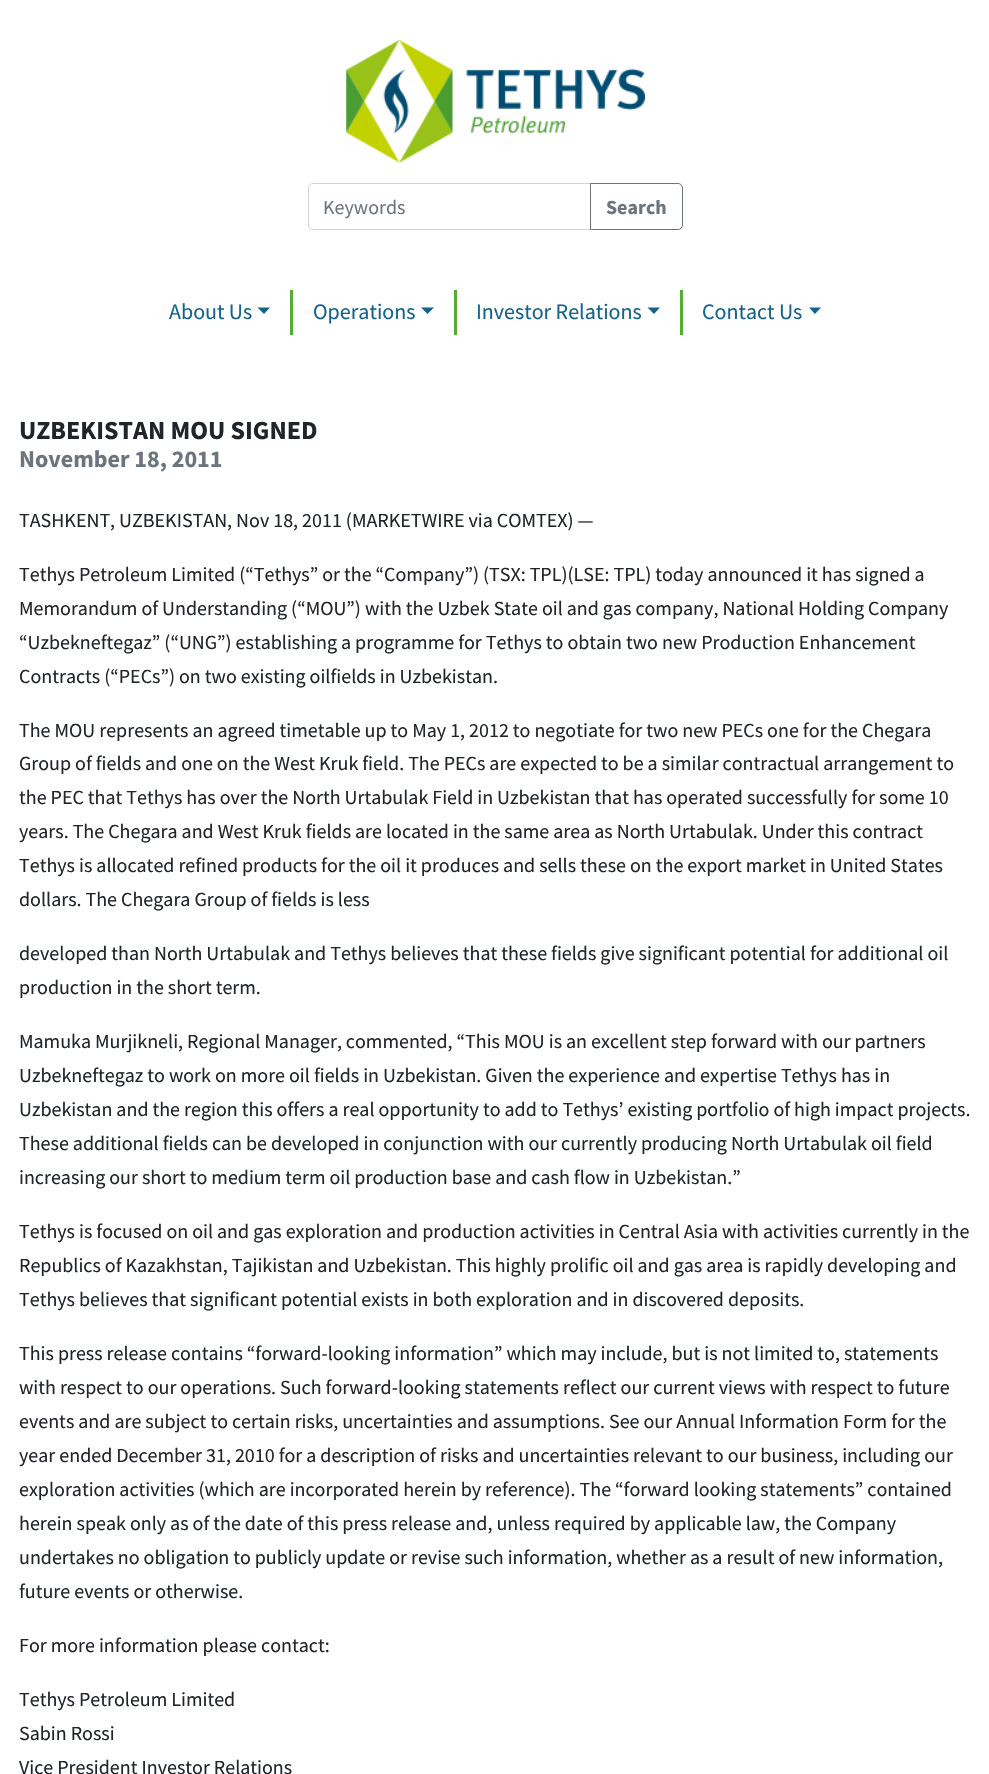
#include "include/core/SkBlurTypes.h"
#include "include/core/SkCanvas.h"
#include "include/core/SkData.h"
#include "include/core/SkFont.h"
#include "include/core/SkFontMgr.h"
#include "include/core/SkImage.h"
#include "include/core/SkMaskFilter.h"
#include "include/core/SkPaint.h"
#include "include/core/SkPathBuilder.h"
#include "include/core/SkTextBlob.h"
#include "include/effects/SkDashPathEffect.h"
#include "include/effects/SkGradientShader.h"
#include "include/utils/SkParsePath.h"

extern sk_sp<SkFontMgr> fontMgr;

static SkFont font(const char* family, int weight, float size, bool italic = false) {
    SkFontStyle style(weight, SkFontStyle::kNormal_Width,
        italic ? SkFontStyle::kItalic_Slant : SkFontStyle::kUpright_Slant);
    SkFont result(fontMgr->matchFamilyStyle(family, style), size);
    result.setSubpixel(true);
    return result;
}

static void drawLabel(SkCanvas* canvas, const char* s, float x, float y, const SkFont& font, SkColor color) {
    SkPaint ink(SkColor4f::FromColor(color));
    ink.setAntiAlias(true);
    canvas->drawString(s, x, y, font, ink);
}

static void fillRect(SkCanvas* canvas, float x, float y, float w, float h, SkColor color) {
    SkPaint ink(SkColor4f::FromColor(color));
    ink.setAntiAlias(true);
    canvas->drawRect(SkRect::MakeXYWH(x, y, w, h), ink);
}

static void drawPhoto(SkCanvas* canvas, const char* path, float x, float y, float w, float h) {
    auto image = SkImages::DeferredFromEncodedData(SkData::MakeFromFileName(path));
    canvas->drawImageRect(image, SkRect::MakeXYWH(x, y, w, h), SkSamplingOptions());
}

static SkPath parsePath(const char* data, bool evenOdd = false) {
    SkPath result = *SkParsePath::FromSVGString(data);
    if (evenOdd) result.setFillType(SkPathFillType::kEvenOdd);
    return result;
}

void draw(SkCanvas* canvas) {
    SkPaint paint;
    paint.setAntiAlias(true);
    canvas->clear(0xFFFFFFFF);
    drawPhoto(canvas, "assets/img1.png", 346, 40, 299, 123);
    paint.setStroke(true);
    paint.setStrokeWidth(1);
    paint.setColor(0xFFCED4DA);
    canvas->drawPath(parsePath("M313 183.5H590.5V229.5H313C310.5 229.5 308.5 227.5 308.5 225V188C308.5 185.5 310.5 183.5 313 183.5Z"), paint);
    SkFont font1 = font("Source Sans Pro", 400, 20);
    drawLabel(canvas, "Keywords", 323, 214, font1, 0xFF6C757D);
    paint.setColor(0xFF6C757D);
    canvas->drawPath(parsePath("M590.5 183.5H678C680.5 183.5 682.5 185.5 682.5 188V225C682.5 227.5 680.5 229.5 678 229.5H590.5Z"), paint);
    SkFont font2 = font("Source Sans Pro", 700, 20);
    drawLabel(canvas, "Search", 606, 214, font2, 0xFF6C757D);
    fillRect(canvas, 290, 290, 3, 45, 0xFF55AE30);
    SkFont font3 = font("Source Sans Pro", 400, 22);
    drawLabel(canvas, "About Us", 169, 319, font3, 0xFF14638A);
    paint.setStroke(false);
    paint.setColor(0xFF14638A);
    canvas->drawPath(parsePath("M257.5 307.5H270L264 314Z"), paint);
    fillRect(canvas, 454, 290, 3, 45, 0xFF55AE30);
    drawLabel(canvas, "Operations", 313, 319, font3, 0xFF14638A);
    canvas->drawPath(parsePath("M421 307.5H434L427.5 314Z"), paint);
    fillRect(canvas, 680, 290, 3, 45, 0xFF55AE30);
    drawLabel(canvas, "Investor Relations", 476, 319, font3, 0xFF14638A);
    canvas->drawPath(parsePath("M647.5 307.5H660L654 314Z"), paint);
    drawLabel(canvas, "Contact Us", 702, 319, font3, 0xFF14638A);
    canvas->drawPath(parsePath("M809 307.5H821L815 314Z"), paint);
    SkFont font4 = font("Source Sans Pro", 700, 26);
    drawLabel(canvas, "UZBEKISTAN MOU SIGNED", 19, 439, font4, 0xFF212529);
    SkFont font5 = font("Source Sans Pro", 700, 24);
    drawLabel(canvas, "November 18, 2011", 19, 467, font5, 0xFF6C757D);
    drawLabel(canvas, "TASHKENT, UZBEKISTAN, Nov 18, 2011 (MARKETWIRE via COMTEX) —", 19, 527, font1, 0xFF212529);
    drawLabel(canvas, "Tethys Petroleum Limited (“Tethys” or the “Company”) (TSX: TPL)(LSE: TPL) today announced it has signed a", 19, 581, font1, 0xFF212529);
    drawLabel(canvas, "Memorandum of Understanding (“MOU”) with the Uzbek State oil and gas company, National Holding Company", 19, 615, font1, 0xFF212529);
    drawLabel(canvas, "“Uzbekneftegaz” (“UNG”) establishing a programme for Tethys to obtain two new Production Enhancement", 19, 649, font1, 0xFF212529);
    drawLabel(canvas, "Contracts (“PECs”) on two existing oilfields in Uzbekistan.", 19, 683, font1, 0xFF212529);
    drawLabel(canvas, "The MOU represents an agreed timetable up to May 1, 2012 to negotiate for two new PECs one for the Chegara", 19, 737, font1, 0xFF212529);
    drawLabel(canvas, "Group of fields and one on the West Kruk field. The PECs are expected to be a similar contractual arrangement to", 19, 770, font1, 0xFF212529);
    drawLabel(canvas, "the PEC that Tethys has over the North Urtabulak Field in Uzbekistan that has operated successfully for some 10", 19, 804, font1, 0xFF212529);
    drawLabel(canvas, "years. The Chegara and West Kruk fields are located in the same area as North Urtabulak. Under this contract", 19, 838, font1, 0xFF212529);
    drawLabel(canvas, "Tethys is allocated refined products for the oil it produces and sells these on the export market in United States", 19, 872, font1, 0xFF212529);
    drawLabel(canvas, "dollars. The Chegara Group of fields is less", 19, 906, font1, 0xFF212529);
    drawLabel(canvas, "developed than North Urtabulak and Tethys believes that these fields give significant potential for additional oil", 19, 960, font1, 0xFF212529);
    drawLabel(canvas, "production in the short term.", 19, 994, font1, 0xFF212529);
    drawLabel(canvas, "Mamuka Murjikneli, Regional Manager, commented, “This MOU is an excellent step forward with our partners", 19, 1048, font1, 0xFF212529);
    drawLabel(canvas, "Uzbekneftegaz to work on more oil fields in Uzbekistan. Given the experience and expertise Tethys has in", 19, 1082, font1, 0xFF212529);
    drawLabel(canvas, "Uzbekistan and the region this offers a real opportunity to add to Tethys’ existing portfolio of high impact projects.", 19, 1116, font1, 0xFF212529);
    drawLabel(canvas, "These additional fields can be developed in conjunction with our currently producing North Urtabulak oil field", 19, 1150, font1, 0xFF212529);
    drawLabel(canvas, "increasing our short to medium term oil production base and cash flow in Uzbekistan.”", 19, 1184, font1, 0xFF212529);
    drawLabel(canvas, "Tethys is focused on oil and gas exploration and production activities in Central Asia with activities currently in the", 19, 1238, font1, 0xFF212529);
    drawLabel(canvas, "Republics of Kazakhstan, Tajikistan and Uzbekistan. This highly prolific oil and gas area is rapidly developing and", 19, 1272, font1, 0xFF212529);
    drawLabel(canvas, "Tethys believes that significant potential exists in both exploration and in discovered deposits.", 19, 1306, font1, 0xFF212529);
    drawLabel(canvas, "This press release contains “forward-looking information” which may include, but is not limited to, statements", 19, 1360, font1, 0xFF212529);
    drawLabel(canvas, "with respect to our operations. Such forward-looking statements reflect our current views with respect to future", 19, 1394, font1, 0xFF212529);
    drawLabel(canvas, "events and are subject to certain risks, uncertainties and assumptions. See our Annual Information Form for the", 19, 1428, font1, 0xFF212529);
    drawLabel(canvas, "year ended December 31, 2010 for a description of risks and uncertainties relevant to our business, including our", 19, 1462, font1, 0xFF212529);
    drawLabel(canvas, "exploration activities (which are incorporated herein by reference). The “forward looking statements” contained", 19, 1496, font1, 0xFF212529);
    drawLabel(canvas, "herein speak only as of the date of this press release and, unless required by applicable law, the Company", 19, 1530, font1, 0xFF212529);
    drawLabel(canvas, "undertakes no obligation to publicly update or revise such information, whether as a result of new information,", 19, 1564, font1, 0xFF212529);
    drawLabel(canvas, "future events or otherwise.", 19, 1598, font1, 0xFF212529);
    drawLabel(canvas, "For more information please contact:", 19, 1652, font1, 0xFF212529);
    drawLabel(canvas, "Tethys Petroleum Limited", 19, 1706, font1, 0xFF212529);
    drawLabel(canvas, "Sabin Rossi", 19, 1740, font1, 0xFF212529);
    drawLabel(canvas, "Vice President Investor Relations", 19, 1774, font1, 0xFF212529);
}
